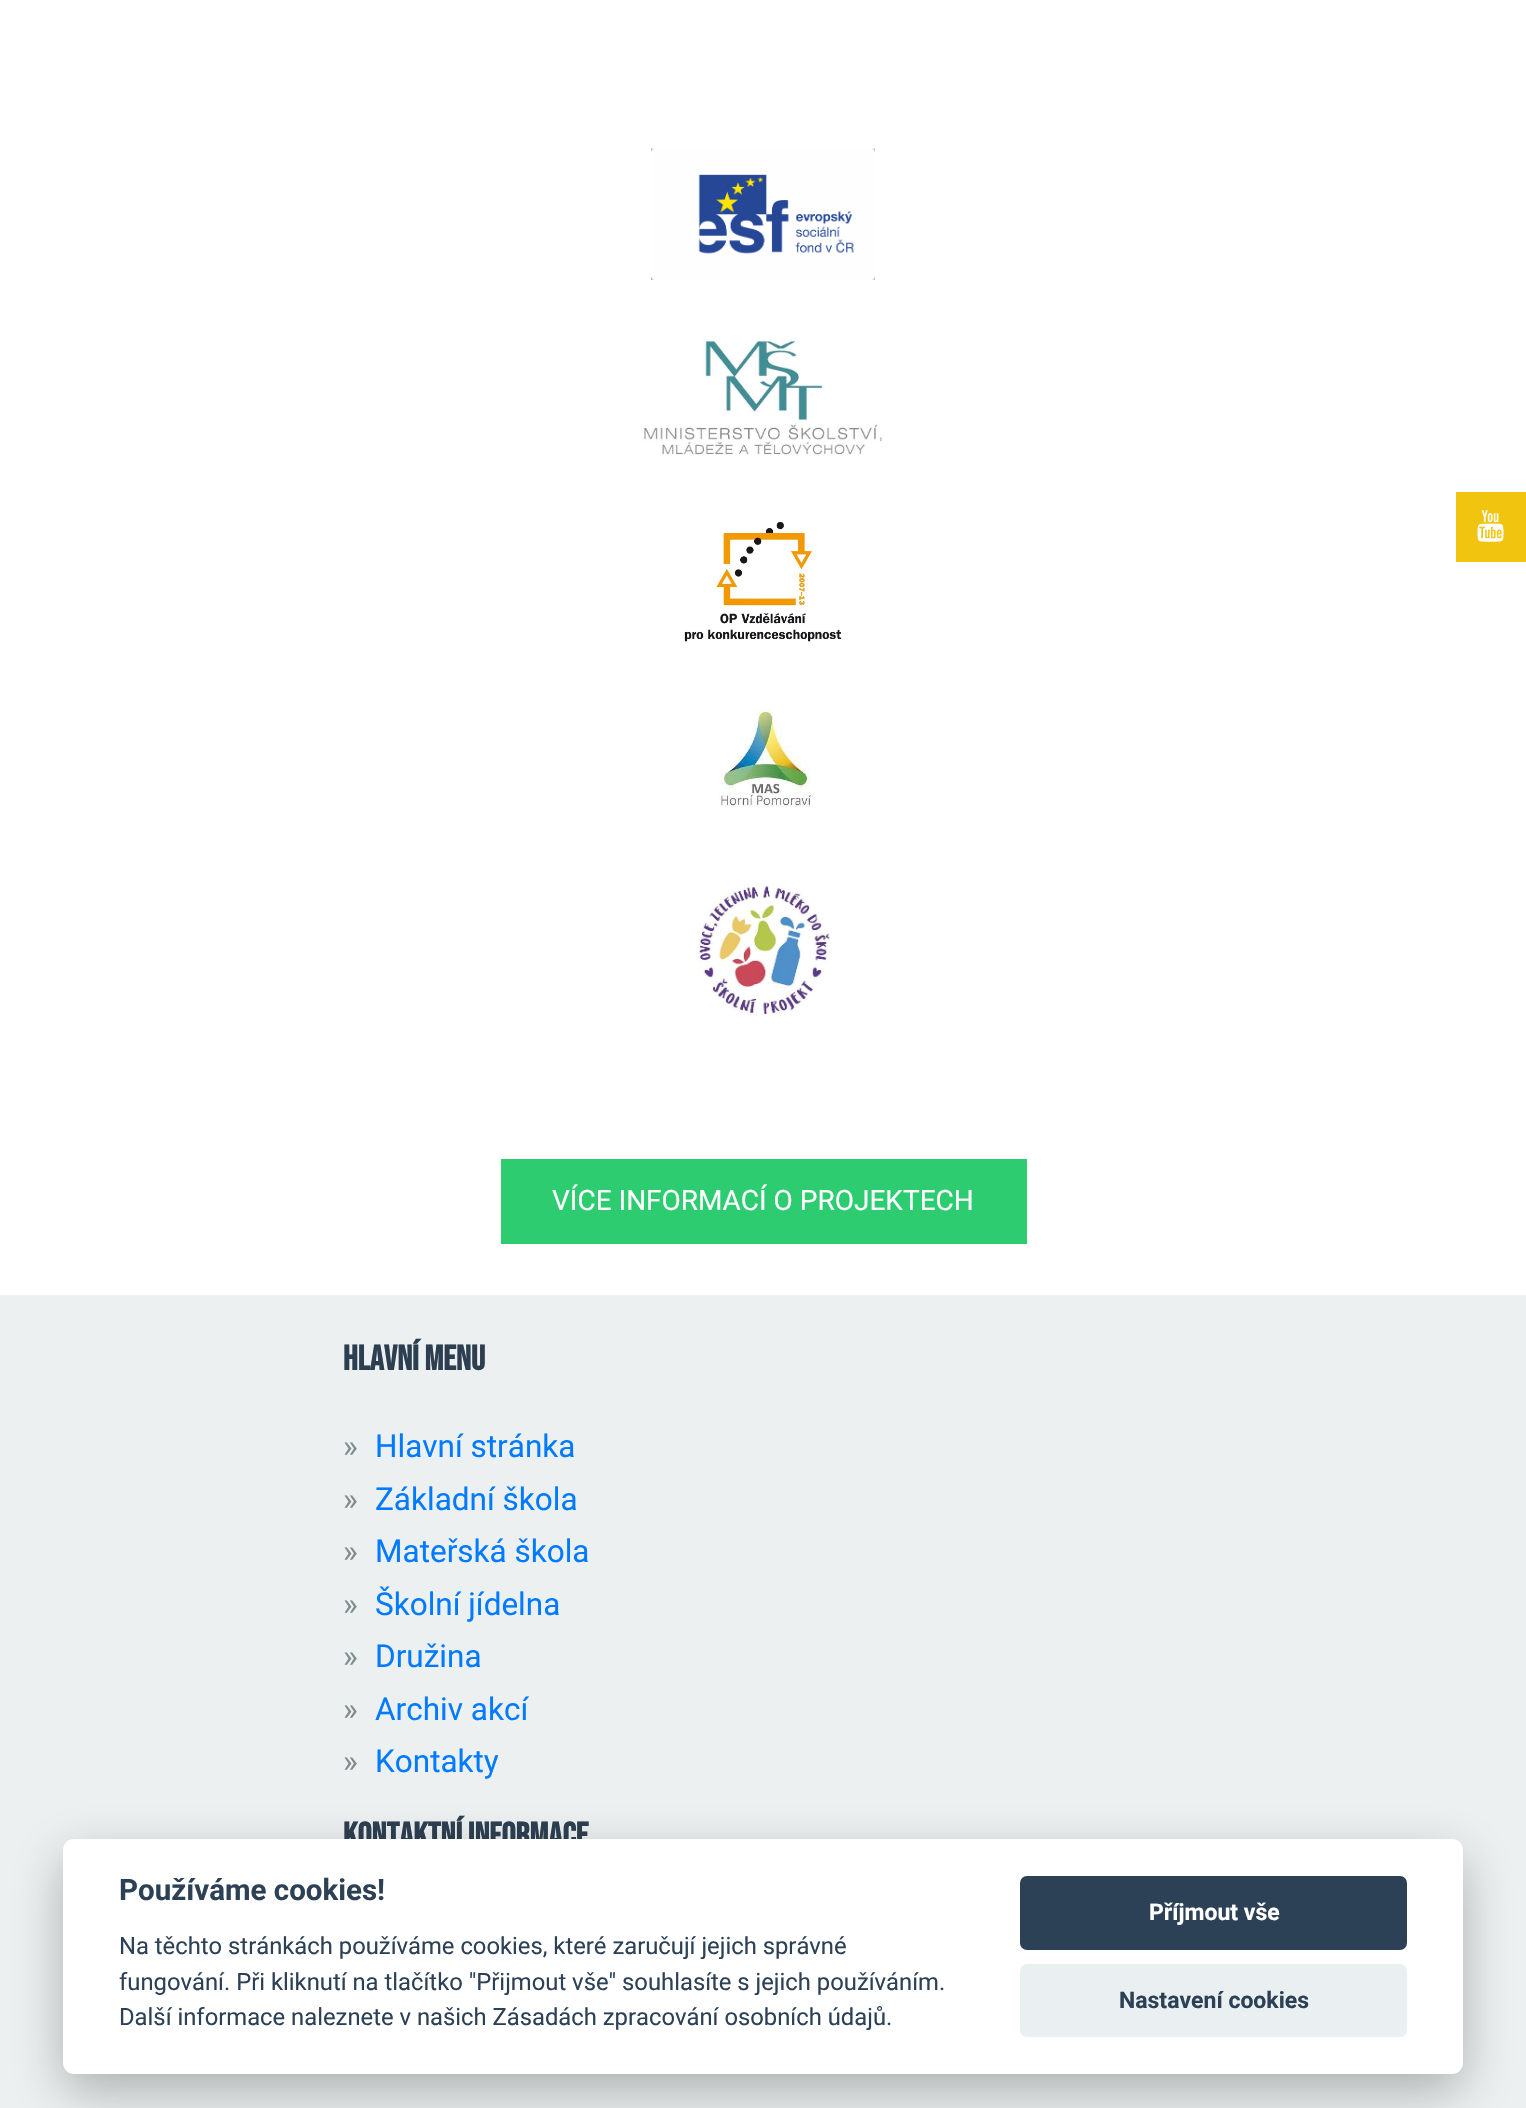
#include "include/core/SkBlurTypes.h"
#include "include/core/SkCanvas.h"
#include "include/core/SkData.h"
#include "include/core/SkFont.h"
#include "include/core/SkFontMgr.h"
#include "include/core/SkImage.h"
#include "include/core/SkMaskFilter.h"
#include "include/core/SkPaint.h"
#include "include/core/SkPathBuilder.h"
#include "include/core/SkTextBlob.h"
#include "include/effects/SkDashPathEffect.h"
#include "include/effects/SkGradientShader.h"
#include "include/utils/SkParsePath.h"

extern sk_sp<SkFontMgr> fontMgr;

static SkFont font(const char* family, int weight, float size, bool italic = false) {
    SkFontStyle style(weight, SkFontStyle::kNormal_Width,
        italic ? SkFontStyle::kItalic_Slant : SkFontStyle::kUpright_Slant);
    SkFont result(fontMgr->matchFamilyStyle(family, style), size);
    result.setSubpixel(true);
    return result;
}

static void drawLabel(SkCanvas* canvas, const char* s, float x, float y, const SkFont& font, SkColor color) {
    SkPaint ink(SkColor4f::FromColor(color));
    ink.setAntiAlias(true);
    canvas->drawString(s, x, y, font, ink);
}

static void fillRect(SkCanvas* canvas, float x, float y, float w, float h, SkColor color) {
    SkPaint ink(SkColor4f::FromColor(color));
    ink.setAntiAlias(true);
    canvas->drawRect(SkRect::MakeXYWH(x, y, w, h), ink);
}

static void fillRRect(SkCanvas* canvas, float x, float y, float w, float h, float radius, SkColor color) {
    SkPaint ink(SkColor4f::FromColor(color));
    ink.setAntiAlias(true);
    canvas->drawRoundRect(SkRect::MakeXYWH(x, y, w, h), radius, radius, ink);
}

static void drawPhoto(SkCanvas* canvas, const char* path, float x, float y, float w, float h) {
    auto image = SkImages::DeferredFromEncodedData(SkData::MakeFromFileName(path));
    canvas->drawImageRect(image, SkRect::MakeXYWH(x, y, w, h), SkSamplingOptions());
}

void draw(SkCanvas* canvas) {
    SkPaint paint;
    paint.setAntiAlias(true);
    canvas->clear(0xFFFFFFFF);
    fillRect(canvas, 1456, 492, 70, 70, 0xFFF1C40F);
    drawPhoto(canvas, "assets/img1.png", 1477, 510, 27, 32);
    drawPhoto(canvas, "assets/img2.png", 651, 148, 224, 132);
    drawPhoto(canvas, "assets/img3.png", 643, 339, 239, 116);
    drawPhoto(canvas, "assets/img4.png", 684, 522, 158, 120);
    drawPhoto(canvas, "assets/img5.png", 719, 709, 96, 98);
    drawPhoto(canvas, "assets/img6.png", 698, 883, 132, 132);
    fillRect(canvas, 501, 1159, 526, 85, 0xFF2ECC71);
    SkFont font1 = font("Roboto", 400, 28);
    drawLabel(canvas, "VÍCE INFORMACÍ O PROJEKTECH", 552, 1210, font1, 0xFFFFFFFF);
    fillRect(canvas, 0, 1295, 1526, 813, 0xFFECF0F1);
    SkFont font2 = font("Bebas Neue", 700, 35);
    drawLabel(canvas, "HLAVNÍ MENU", 343, 1370, font2, 0xFF2C3E50);
    SkFont font3 = font("Roboto", 400, 31.5f);
    drawLabel(canvas, "»", 343, 1457, font3, 0xFF7F8C8D);
    drawLabel(canvas, "Hlavní stránka", 375, 1457, font3, 0xFF007BFF);
    drawLabel(canvas, "»", 343, 1510, font3, 0xFF7F8C8D);
    drawLabel(canvas, "Základní škola", 375, 1510, font3, 0xFF007BFF);
    drawLabel(canvas, "»", 343, 1562, font3, 0xFF7F8C8D);
    drawLabel(canvas, "Mateřská škola", 375, 1562, font3, 0xFF007BFF);
    drawLabel(canvas, "»", 343, 1615, font3, 0xFF7F8C8D);
    drawLabel(canvas, "Školní jídelna", 375, 1615, font3, 0xFF007BFF);
    drawLabel(canvas, "»", 343, 1667, font3, 0xFF7F8C8D);
    drawLabel(canvas, "Družina", 375, 1667, font3, 0xFF007BFF);
    drawLabel(canvas, "»", 343, 1720, font3, 0xFF7F8C8D);
    drawLabel(canvas, "Archiv akcí", 375, 1720, font3, 0xFF007BFF);
    drawLabel(canvas, "»", 343, 1772, font3, 0xFF7F8C8D);
    drawLabel(canvas, "Kontakty", 375, 1772, font3, 0xFF007BFF);
    drawLabel(canvas, "KONTAKTNÍ INFORMACE", 343, 1847, font2, 0xFF2C3E50);
    paint.setColor(0x47020203);
    paint.setMaskFilter(SkMaskFilter::MakeBlur(kNormal_SkBlurStyle, 26));
    canvas->drawRoundRect(SkRect::MakeXYWH(63, 1857, 1400, 234), 11, 11, paint);
    paint.setMaskFilter(nullptr);
    fillRRect(canvas, 63, 1839, 1400, 235, 11, 0xFFFFFFFF);
    SkFont font4 = font("Roboto", 700, 29.5f);
    drawLabel(canvas, "Používáme cookies!", 119, 1900, font4, 0xFF2D4156);
    SkFont font5 = font("Roboto", 400, 23.8f);
    drawLabel(canvas, "Na těchto stránkách používáme cookies, které zaručují jejich správné", 119, 1954, font5, 0xFF2D4156);
    drawLabel(canvas, "fungování. Při kliknutí na tlačítko \"Přijmout vše\" souhlasíte s jejich používáním.", 119, 1990, font5, 0xFF2D4156);
    drawLabel(canvas, "Další informace naleznete v našich Zásadách zpracování osobních údajů.", 119, 2025, font5, 0xFF2D4156);
    fillRRect(canvas, 1020, 1876, 387, 74, 7, 0xFF2D4156);
    SkFont font6 = font("Roboto", 700, 23);
    drawLabel(canvas, "Příjmout vše", 1149, 1920, font6, 0xFFFFFFFF);
    fillRRect(canvas, 1020, 1964, 387, 73, 7, 0xFFEAEFF2);
    drawLabel(canvas, "Nastavení cookies", 1119, 2008, font6, 0xFF2D4156);
}
